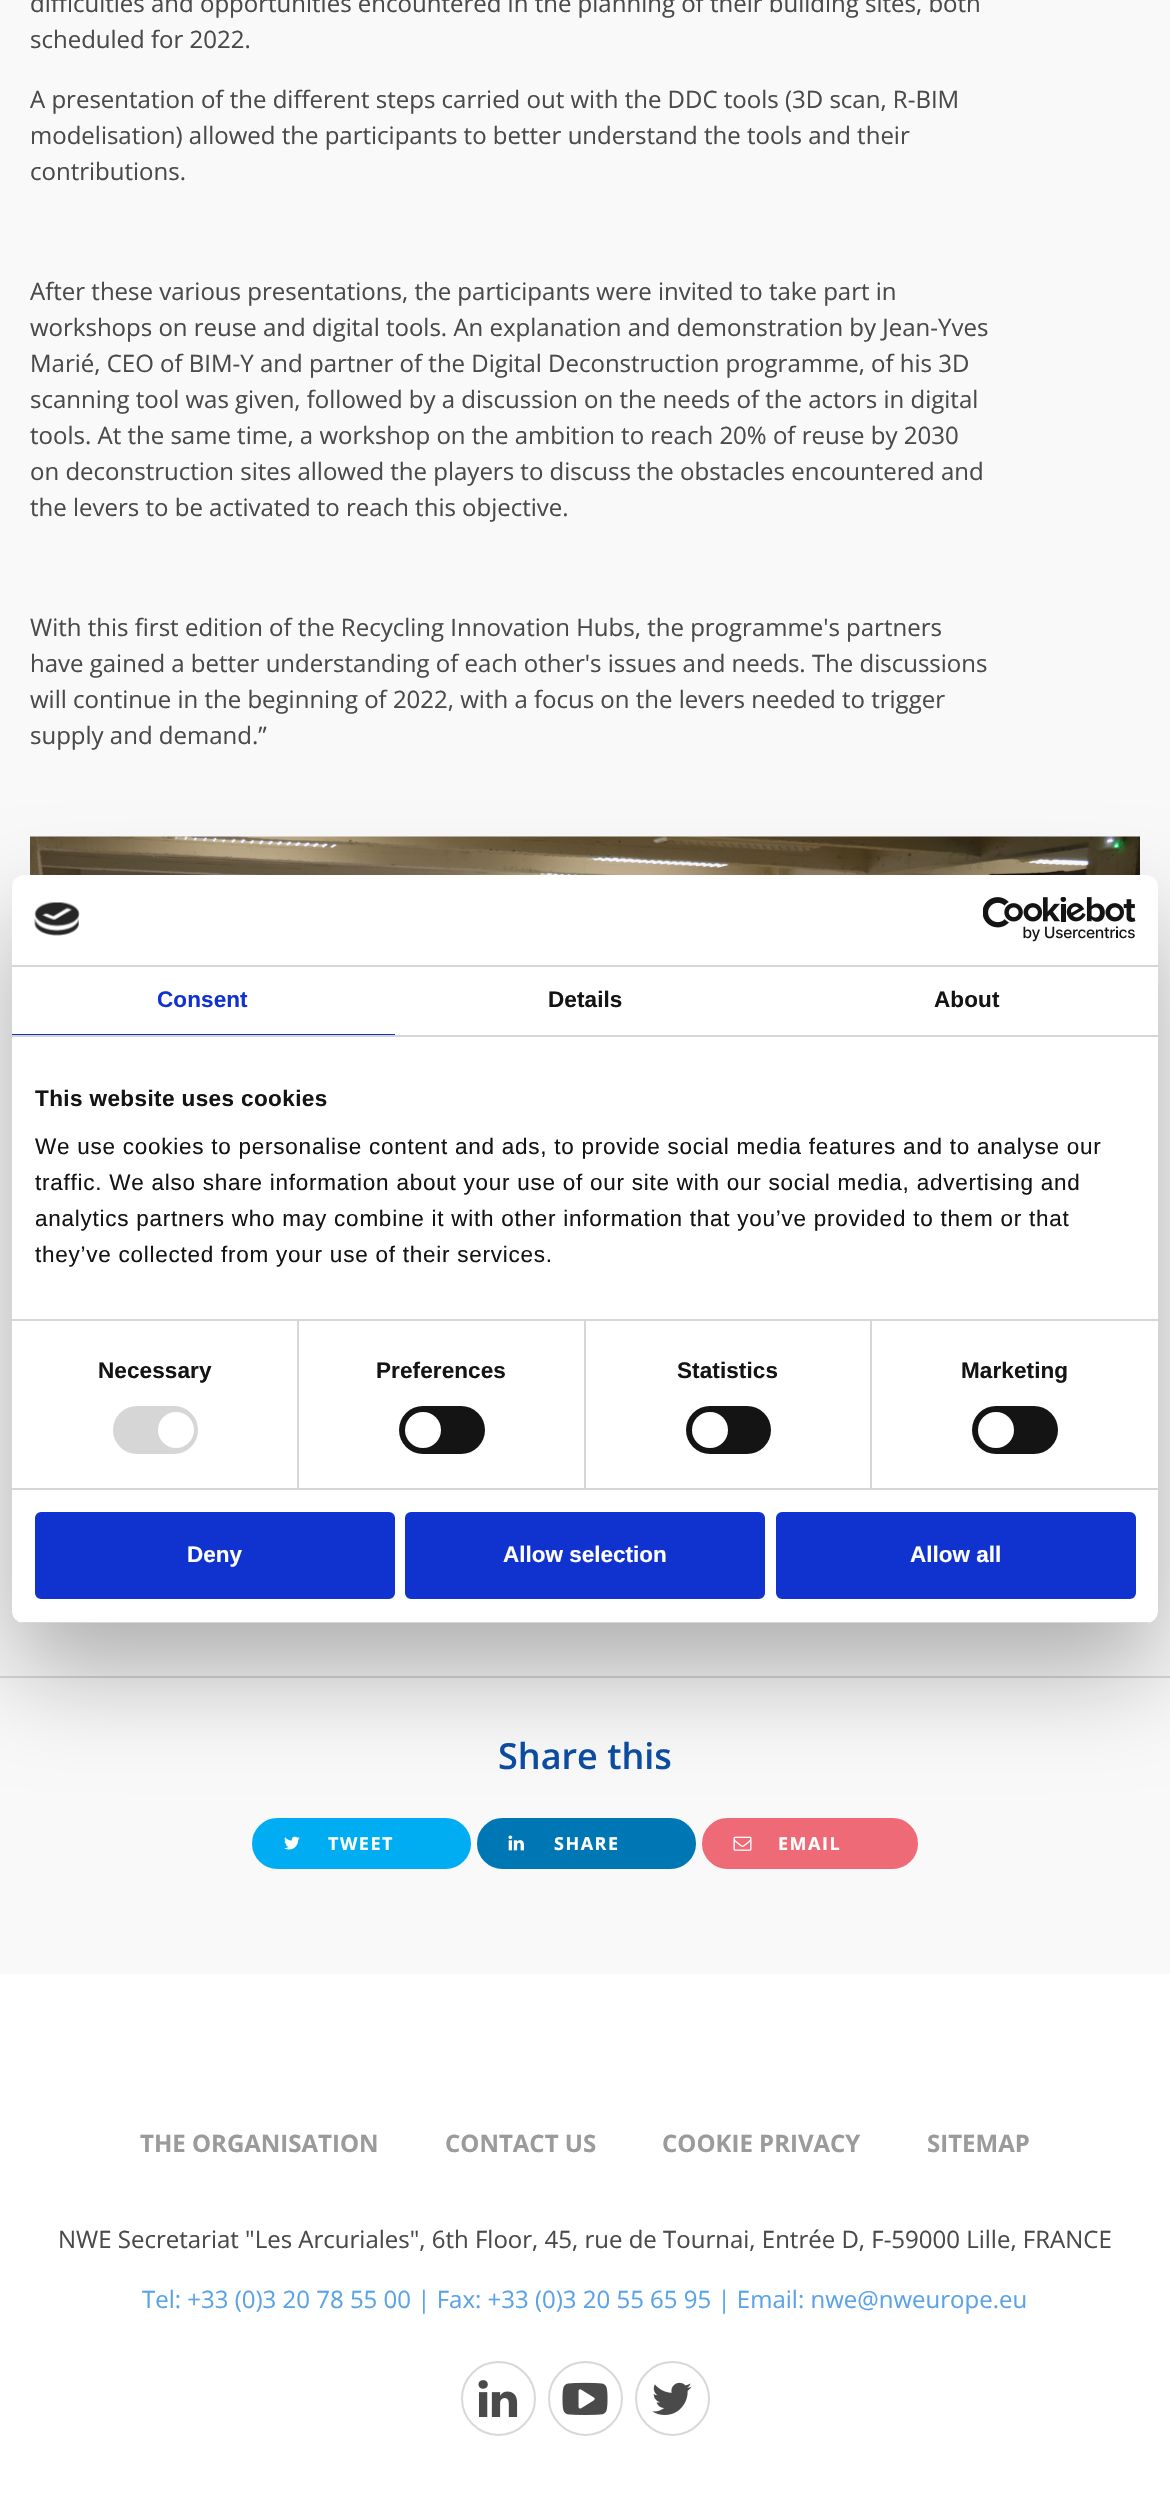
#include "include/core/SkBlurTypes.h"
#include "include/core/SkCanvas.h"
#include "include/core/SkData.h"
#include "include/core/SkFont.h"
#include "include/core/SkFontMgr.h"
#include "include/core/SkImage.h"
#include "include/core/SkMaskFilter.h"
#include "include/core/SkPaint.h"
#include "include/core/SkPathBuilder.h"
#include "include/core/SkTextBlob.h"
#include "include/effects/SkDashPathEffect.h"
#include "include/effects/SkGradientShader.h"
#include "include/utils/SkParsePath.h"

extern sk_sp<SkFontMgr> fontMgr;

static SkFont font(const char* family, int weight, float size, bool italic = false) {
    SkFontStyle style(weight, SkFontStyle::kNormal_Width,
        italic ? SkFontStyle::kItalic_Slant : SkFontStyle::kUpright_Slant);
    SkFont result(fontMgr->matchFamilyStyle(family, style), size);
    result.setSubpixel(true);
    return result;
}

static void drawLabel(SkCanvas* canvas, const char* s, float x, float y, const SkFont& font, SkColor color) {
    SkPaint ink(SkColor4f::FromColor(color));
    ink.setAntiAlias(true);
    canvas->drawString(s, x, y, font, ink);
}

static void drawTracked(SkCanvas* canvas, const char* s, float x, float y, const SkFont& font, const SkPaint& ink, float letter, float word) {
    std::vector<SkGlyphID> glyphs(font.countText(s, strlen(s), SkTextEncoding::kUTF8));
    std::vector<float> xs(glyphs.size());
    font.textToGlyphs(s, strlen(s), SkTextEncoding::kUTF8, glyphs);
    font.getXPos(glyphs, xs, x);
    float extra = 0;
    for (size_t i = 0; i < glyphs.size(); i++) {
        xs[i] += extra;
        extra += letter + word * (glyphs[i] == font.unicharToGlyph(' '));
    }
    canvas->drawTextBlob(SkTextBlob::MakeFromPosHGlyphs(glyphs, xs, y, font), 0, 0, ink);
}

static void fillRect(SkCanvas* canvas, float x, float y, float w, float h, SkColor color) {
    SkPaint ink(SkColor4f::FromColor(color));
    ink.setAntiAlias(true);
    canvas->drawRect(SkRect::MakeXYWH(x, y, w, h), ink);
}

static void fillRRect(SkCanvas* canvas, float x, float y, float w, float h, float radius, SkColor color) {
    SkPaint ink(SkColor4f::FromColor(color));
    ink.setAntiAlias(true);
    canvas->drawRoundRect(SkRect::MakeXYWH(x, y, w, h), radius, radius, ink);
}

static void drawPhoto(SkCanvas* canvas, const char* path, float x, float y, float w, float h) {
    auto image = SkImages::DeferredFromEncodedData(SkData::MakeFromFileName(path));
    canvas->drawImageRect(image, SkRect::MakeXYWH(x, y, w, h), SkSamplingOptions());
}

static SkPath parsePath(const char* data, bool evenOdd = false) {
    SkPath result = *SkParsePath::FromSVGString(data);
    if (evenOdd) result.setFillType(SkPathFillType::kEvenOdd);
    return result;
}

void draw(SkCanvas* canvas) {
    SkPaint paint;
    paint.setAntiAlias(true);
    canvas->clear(0xFFFFFFFF);
    fillRect(canvas, 0, 0, 1170, 1974, 0xFFF9F9F9);
    SkFont font1 = font("Open Sans", 400, 24);
    drawLabel(canvas, "difficulties and opportunities encountered in the planning of their building sites, both", 30, 12, font1, 0xFF4A4A4A);
    drawLabel(canvas, "scheduled for 2022.", 30, 48, font1, 0xFF4A4A4A);
    drawLabel(canvas, "A presentation of the different steps carried out with the DDC tools (3D scan, R-BIM", 30, 108, font1, 0xFF4A4A4A);
    drawLabel(canvas, "modelisation) allowed the participants to better understand the tools and their", 30, 144, font1, 0xFF4A4A4A);
    drawLabel(canvas, "contributions.", 30, 180, font1, 0xFF4A4A4A);
    drawLabel(canvas, "After these various presentations, the participants were invited to take part in", 30, 300, font1, 0xFF4A4A4A);
    drawLabel(canvas, "workshops on reuse and digital tools. An explanation and demonstration by Jean-Yves", 30, 336, font1, 0xFF4A4A4A);
    drawLabel(canvas, "Marié, CEO of BIM-Y and partner of the Digital Deconstruction programme, of his 3D", 30, 372, font1, 0xFF4A4A4A);
    drawLabel(canvas, "scanning tool was given, followed by a discussion on the needs of the actors in digital", 30, 408, font1, 0xFF4A4A4A);
    drawLabel(canvas, "tools. At the same time, a workshop on the ambition to reach 20% of reuse by 2030", 30, 444, font1, 0xFF4A4A4A);
    drawLabel(canvas, "on deconstruction sites allowed the players to discuss the obstacles encountered and", 30, 480, font1, 0xFF4A4A4A);
    drawLabel(canvas, "the levers to be activated to reach this objective.", 30, 516, font1, 0xFF4A4A4A);
    drawLabel(canvas, "With this first edition of the Recycling Innovation Hubs, the programme's partners", 30, 636, font1, 0xFF4A4A4A);
    drawLabel(canvas, "have gained a better understanding of each other's issues and needs. The discussions", 30, 672, font1, 0xFF4A4A4A);
    drawLabel(canvas, "will continue in the beginning of 2022, with a focus on the levers needed to trigger", 30, 708, font1, 0xFF4A4A4A);
    drawLabel(canvas, "supply and demand.”", 30, 744, font1, 0xFF4A4A4A);
    drawPhoto(canvas, "assets/img1.png", 30, 836, 1110, 39);
    fillRect(canvas, 0, 1676, 1170, 2, 0xFFD8D8D8);
    SkFont font2 = font("Open Sans", 600, 36);
    drawLabel(canvas, "Share this", 498, 1769, font2, 0xFF0C4DA2);
    paint.setColor(0xFF00ADF2);
    canvas->drawRoundRect(SkRect::MakeXYWH(253, 1819, 217, 49), 24.5f, 24.5f, paint);
    paint.setStroke(true);
    paint.setStrokeWidth(2);
    canvas->drawRoundRect(SkRect::MakeXYWH(253, 1819, 217, 49), 24.5f, 24.5f, paint);
    drawPhoto(canvas, "assets/img2.png", 284, 1836, 16, 14);
    SkFont font3 = font("Open Sans", 700, 18);
    paint.setStroke(false);
    paint.setColor(0xFFFFFFFF);
    drawTracked(canvas, "TWEET", 328, 1850, font3, paint, 1.5f, 0);
    paint.setColor(0xFF0077B5);
    canvas->drawRoundRect(SkRect::MakeXYWH(478, 1819, 217, 49), 24.5f, 24.5f, paint);
    paint.setStroke(true);
    canvas->drawRoundRect(SkRect::MakeXYWH(478, 1819, 217, 49), 24.5f, 24.5f, paint);
    drawPhoto(canvas, "assets/img3.png", 508, 1835, 16, 16);
    paint.setStroke(false);
    paint.setColor(0xFFFFFFFF);
    drawTracked(canvas, "SHARE", 554, 1850, font3, paint, 1.5f, 0);
    paint.setColor(0xFFEF6A77);
    canvas->drawRoundRect(SkRect::MakeXYWH(703, 1819, 214, 49), 24.5f, 24.5f, paint);
    paint.setStroke(true);
    canvas->drawRoundRect(SkRect::MakeXYWH(703, 1819, 214, 49), 24.5f, 24.5f, paint);
    drawPhoto(canvas, "assets/img4.png", 733, 1836, 19, 15);
    paint.setStroke(false);
    paint.setColor(0xFFFFFFFF);
    drawTracked(canvas, "EMAIL", 778, 1850, font3, paint, 1.5f, 0);
    paint.setColor(0x4D000000);
    paint.setMaskFilter(SkMaskFilter::MakeBlur(kNormal_SkBlurStyle, 51));
    canvas->drawRoundRect(SkRect::MakeXYWH(12, 923, 1146, 748), 12, 12, paint);
    paint.setMaskFilter(nullptr);
    fillRRect(canvas, 12, 875, 1146, 748, 12, 0xFFFFFFFF);
    fillRect(canvas, 12, 965, 1146, 2, 0xFFD6D6D6);
    drawPhoto(canvas, "assets/img5.png", 34, 902, 46, 34);
    drawPhoto(canvas, "assets/img6.png", 983, 897, 153, 45);
    fillRect(canvas, 12, 1035, 1146, 2, 0xFFD6D6D6);
    fillRect(canvas, 12, 1034, 383, 1, 0xFF1032CF);
    SkFont font4 = font("Liberation Sans", 700, 22.5f);
    paint.setColor(0xFF1032CF);
    drawTracked(canvas, "Consent", 157, 1007, font4, paint, 0.1f, 0);
    paint.setColor(0xFF141414);
    drawTracked(canvas, "Details", 548, 1007, font4, paint, 0.1f, 0);
    drawTracked(canvas, "About", 934, 1007, font4, paint, 0.1f, 0);
    fillRect(canvas, 297, 1320, 2, 168, 0xFFD6D6D6);
    fillRect(canvas, 584, 1320, 2, 168, 0xFFD6D6D6);
    fillRect(canvas, 870, 1320, 2, 168, 0xFFD6D6D6);
    fillRect(canvas, 12, 1319, 1146, 2, 0xFFD6D6D6);
    drawTracked(canvas, "This website uses cookies", 35, 1106, font4, paint, 0.4f, 0);
    SkFont font5 = font("Liberation Sans", 400, 22.5f);
    drawTracked(canvas, "We use cookies to personalise content and ads, to provide social media features and to analyse our", 35, 1154, font5, paint, 0.75f, 0);
    drawTracked(canvas, "traffic. We also share information about your use of our site with our social media, advertising and", 35, 1190, font5, paint, 0.75f, 0);
    drawTracked(canvas, "analytics partners who may combine it with other information that you’ve provided to them or that", 35, 1226, font5, paint, 0.75f, 0);
    drawTracked(canvas, "they’ve collected from your use of their services.", 35, 1262, font5, paint, 0.75f, 0);
    fillRect(canvas, 12, 1488, 1146, 2, 0xFFD6D6D6);
    drawTracked(canvas, "Necessary", 98, 1378, font4, paint, 0.1f, 0);
    fillRRect(canvas, 113, 1406, 85, 48, 24, 0xFFD6D6D6);
    paint.setColor(0xFFFFFFFF);
    canvas->drawCircle(176, 1430, 18, paint);
    paint.setColor(0xFF141414);
    drawTracked(canvas, "Preferences", 376, 1378, font4, paint, 0.1f, 0);
    fillRRect(canvas, 399, 1406, 86, 48, 24, 0xFF141414);
    paint.setColor(0xFFFFFFFF);
    canvas->drawCircle(423, 1430, 18, paint);
    paint.setColor(0xFF141414);
    drawTracked(canvas, "Statistics", 677, 1378, font4, paint, 0.1f, 0);
    fillRRect(canvas, 686, 1406, 85, 48, 24, 0xFF141414);
    paint.setColor(0xFFFFFFFF);
    canvas->drawCircle(710, 1430, 18, paint);
    paint.setColor(0xFF141414);
    drawTracked(canvas, "Marketing", 961, 1378, font4, paint, 0.1f, 0);
    fillRRect(canvas, 972, 1406, 86, 48, 24, 0xFF141414);
    paint.setColor(0xFFFFFFFF);
    canvas->drawCircle(996, 1430, 18, paint);
    canvas->save();
    canvas->clipPath(parsePath("M24 875H1146C1152.5 875 1158 880.5 1158 887V1611C1158 1617.5 1152.5 1623 1146 1623H24C17.5 1623 12 1617.5 12 1611V887C12 880.5 17.5 875 24 875Z"), true);
    fillRect(canvas, 12, 1622, 1146, 1, 0xFFD6D6D6);
    canvas->restore();
    paint.setColor(0xFF1032CF);
    canvas->drawRoundRect(SkRect::MakeXYWH(36.5f, 1513.5f, 357, 84), 4.5f, 4.5f, paint);
    paint.setStroke(true);
    paint.setStrokeWidth(3);
    canvas->drawRoundRect(SkRect::MakeXYWH(36.5f, 1513.5f, 357, 84), 4.5f, 4.5f, paint);
    drawLabel(canvas, "Deny", 187, 1562, font4, 0xFFFFFFFF);
    paint.setStroke(false);
    canvas->drawRoundRect(SkRect::MakeXYWH(406.5f, 1513.5f, 357, 84), 4.5f, 4.5f, paint);
    paint.setStroke(true);
    canvas->drawRoundRect(SkRect::MakeXYWH(406.5f, 1513.5f, 357, 84), 4.5f, 4.5f, paint);
    drawLabel(canvas, "Allow selection", 503, 1562, font4, 0xFFFFFFFF);
    paint.setStroke(false);
    canvas->drawRoundRect(SkRect::MakeXYWH(777.5f, 1513.5f, 357, 84), 4.5f, 4.5f, paint);
    paint.setStroke(true);
    canvas->drawRoundRect(SkRect::MakeXYWH(777.5f, 1513.5f, 357, 84), 4.5f, 4.5f, paint);
    drawLabel(canvas, "Allow all", 910, 1562, font4, 0xFFFFFFFF);
    SkFont font6 = font("Open Sans", 700, 24);
    drawLabel(canvas, "THE ORGANISATION", 140, 2152, font6, 0xFF9B9B9B);
    drawLabel(canvas, "CONTACT US", 445, 2152, font6, 0xFF9B9B9B);
    drawLabel(canvas, "COOKIE PRIVACY", 662, 2152, font6, 0xFF9B9B9B);
    drawLabel(canvas, "SITEMAP", 927, 2152, font6, 0xFF9B9B9B);
    drawLabel(canvas, "NWE Secretariat \"Les Arcuriales\", 6th Floor, 45, rue de Tournai, Entrée D, F-59000 Lille, FRANCE", 58, 2248, font1, 0xFF4A4A4A);
    drawLabel(canvas, "Tel: +33 (0)3 20 78 55 00 | Fax: +33 (0)3 20 55 65 95 | Email: nwe@nweurope.eu", 142, 2308, font1, 0xFF5AA3E8);
    paint.setStrokeWidth(2);
    paint.setColor(0xFFD8D8D8);
    canvas->drawCircle(498.5f, 2398.5f, 36.5f, paint);
    drawPhoto(canvas, "assets/img7.png", 478, 2380, 40, 37);
    canvas->drawCircle(585.5f, 2398.5f, 36.5f, paint);
    drawPhoto(canvas, "assets/img8.png", 562, 2382, 46, 33);
    canvas->drawCircle(672.5f, 2398.5f, 36.5f, paint);
    drawPhoto(canvas, "assets/img9.png", 652, 2382, 40, 33);
}
